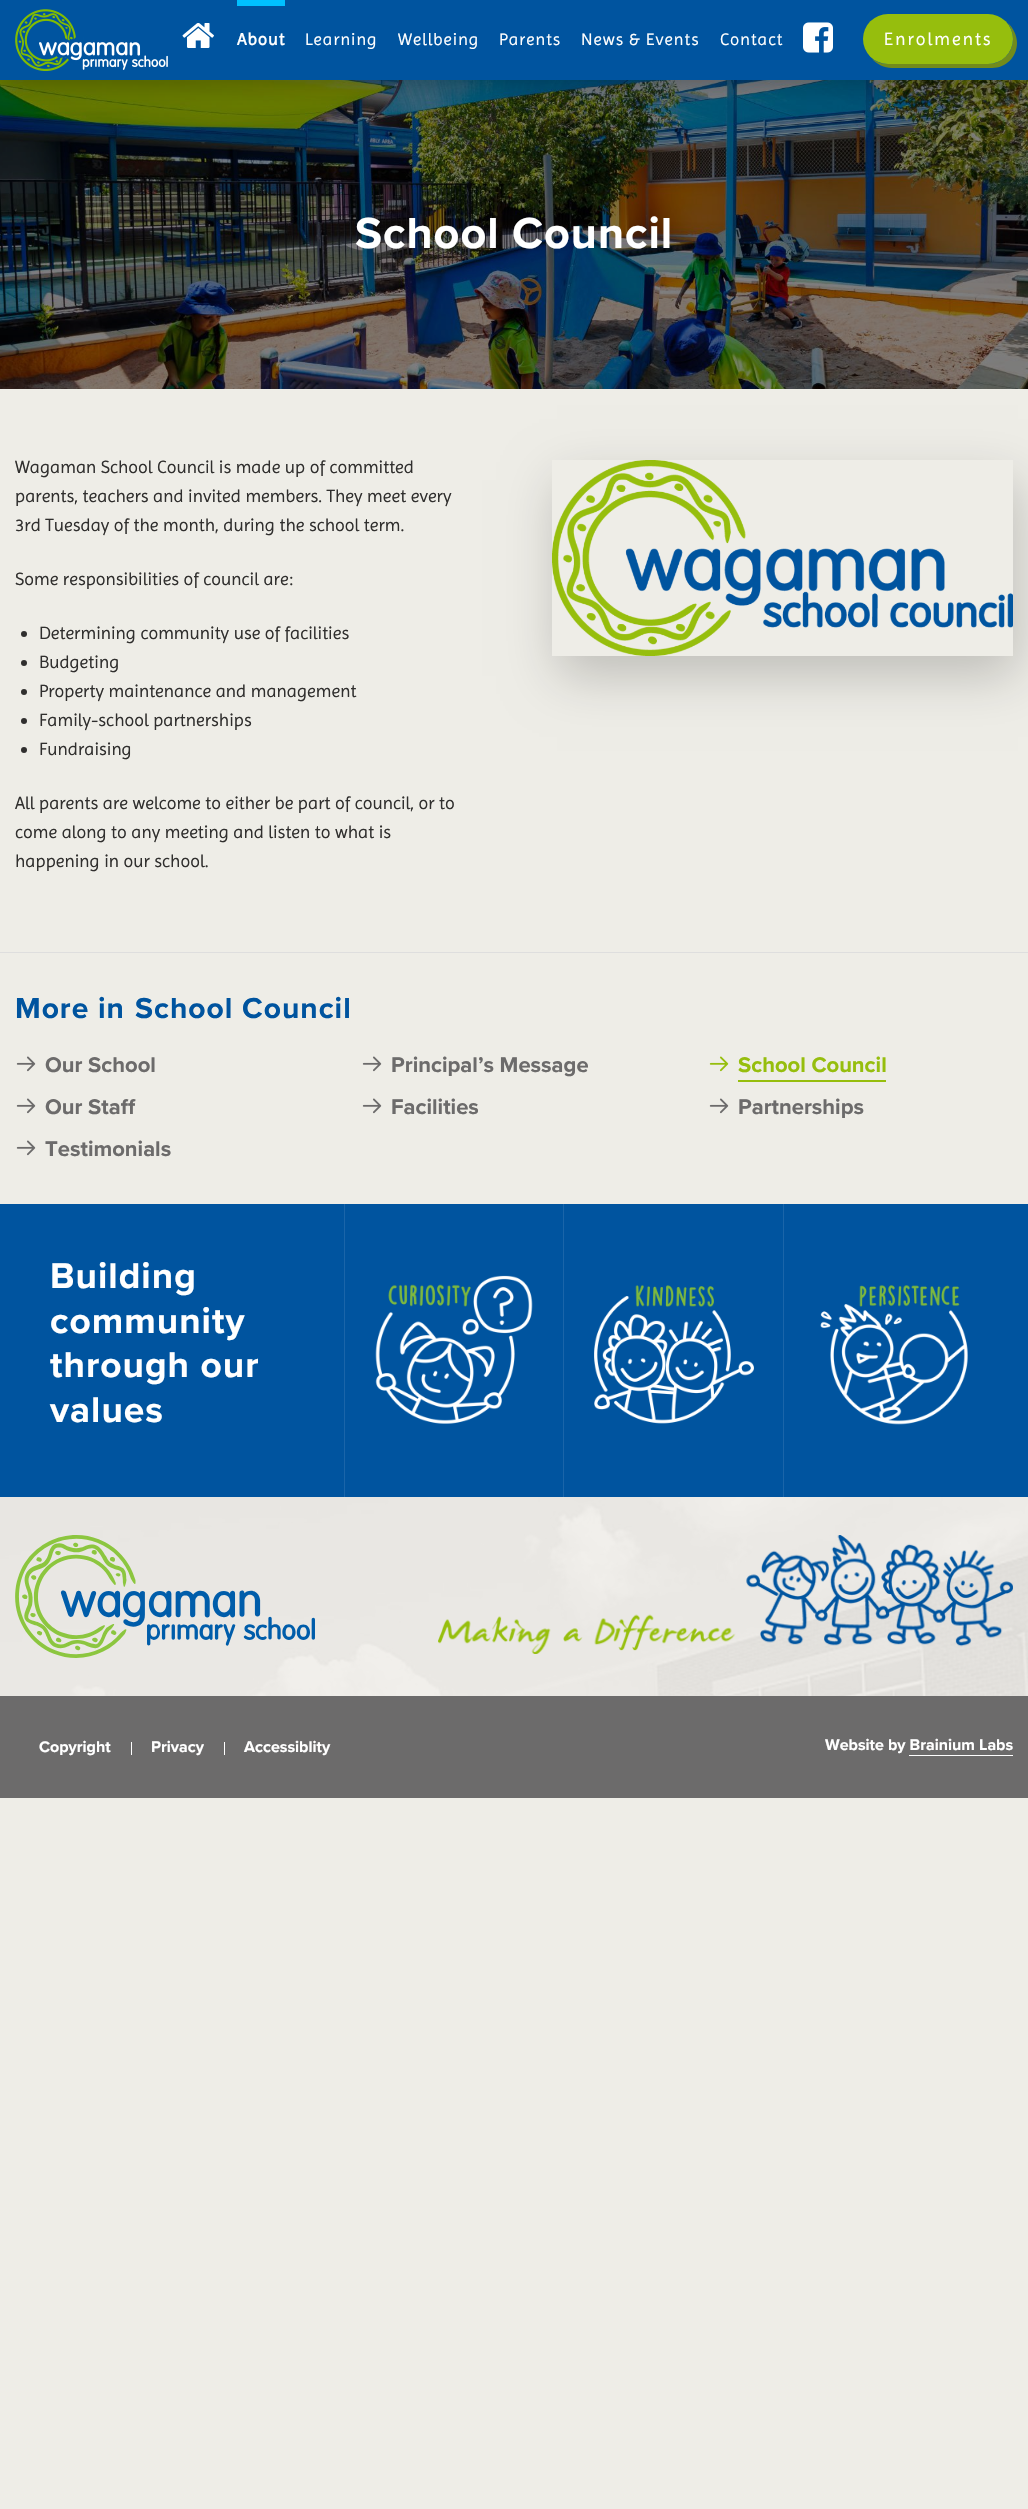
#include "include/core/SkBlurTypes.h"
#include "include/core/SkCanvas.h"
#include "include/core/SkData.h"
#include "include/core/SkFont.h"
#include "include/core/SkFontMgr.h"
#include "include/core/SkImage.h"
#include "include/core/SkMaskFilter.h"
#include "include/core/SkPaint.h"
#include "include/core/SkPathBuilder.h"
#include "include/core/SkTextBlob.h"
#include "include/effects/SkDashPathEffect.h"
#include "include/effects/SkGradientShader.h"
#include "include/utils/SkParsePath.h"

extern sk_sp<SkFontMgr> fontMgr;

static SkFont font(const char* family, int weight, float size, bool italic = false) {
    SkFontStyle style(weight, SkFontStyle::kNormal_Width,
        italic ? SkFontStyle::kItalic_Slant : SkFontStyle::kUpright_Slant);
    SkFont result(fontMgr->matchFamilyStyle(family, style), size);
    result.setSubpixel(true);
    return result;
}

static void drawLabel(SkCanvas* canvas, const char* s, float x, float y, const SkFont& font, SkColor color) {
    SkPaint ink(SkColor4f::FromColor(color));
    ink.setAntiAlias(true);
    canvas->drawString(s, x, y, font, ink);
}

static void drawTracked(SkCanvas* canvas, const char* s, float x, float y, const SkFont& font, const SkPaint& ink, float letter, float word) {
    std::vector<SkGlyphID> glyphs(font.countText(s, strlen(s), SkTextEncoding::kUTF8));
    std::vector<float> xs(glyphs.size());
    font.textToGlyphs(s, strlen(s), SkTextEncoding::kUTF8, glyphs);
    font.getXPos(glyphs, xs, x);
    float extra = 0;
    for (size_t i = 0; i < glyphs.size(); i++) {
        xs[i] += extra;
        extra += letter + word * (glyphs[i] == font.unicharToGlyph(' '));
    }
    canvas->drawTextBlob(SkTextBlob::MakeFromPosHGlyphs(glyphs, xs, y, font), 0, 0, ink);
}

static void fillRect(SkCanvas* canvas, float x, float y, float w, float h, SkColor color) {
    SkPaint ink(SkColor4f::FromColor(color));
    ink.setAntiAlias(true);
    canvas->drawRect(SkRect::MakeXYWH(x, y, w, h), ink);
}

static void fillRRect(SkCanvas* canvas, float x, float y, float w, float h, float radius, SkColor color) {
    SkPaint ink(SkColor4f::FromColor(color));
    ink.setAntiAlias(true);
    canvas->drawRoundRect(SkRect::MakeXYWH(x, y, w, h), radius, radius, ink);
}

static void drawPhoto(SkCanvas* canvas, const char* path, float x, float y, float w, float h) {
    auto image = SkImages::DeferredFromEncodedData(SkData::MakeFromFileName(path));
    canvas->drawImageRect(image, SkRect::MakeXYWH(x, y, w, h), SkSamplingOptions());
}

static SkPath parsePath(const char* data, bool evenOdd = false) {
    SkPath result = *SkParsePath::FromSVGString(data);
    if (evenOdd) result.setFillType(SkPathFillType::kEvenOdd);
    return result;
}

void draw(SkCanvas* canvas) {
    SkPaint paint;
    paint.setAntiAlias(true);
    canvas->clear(0xFFEEEDE7);
    drawPhoto(canvas, "assets/img5.png", 0, 80, 1028, 309);
    paint.setColor(0x33000000);
    paint.setMaskFilter(SkMaskFilter::MakeBlur(kNormal_SkBlurStyle, 10));
    canvas->drawRect(SkRect::MakeXYWH(0, 5, 1028, 80), paint);
    paint.setMaskFilter(nullptr);
    fillRect(canvas, 0, 0, 1028, 80, 0xFF00549F);
    drawPhoto(canvas, "assets/img1.png", 15, 9, 61, 62);
    drawPhoto(canvas, "assets/img2.png", 39, 37, 129, 33);
    drawPhoto(canvas, "assets/img3.png", 182, 23, 32, 25);
    fillRect(canvas, 237, 0, 48, 6, 0xFF00C0FF);
    SkFont font1 = font("Imprima", 700, 17);
    paint.setColor(0xFFFFFFFF);
    drawTracked(canvas, "About", 237, 45, font1, paint, 1, 0);
    SkFont font2 = font("Imprima", 400, 17);
    drawTracked(canvas, "Learning", 305, 45, font2, paint, 1, 0);
    drawTracked(canvas, "Wellbeing", 398, 45, font2, paint, 1, 0);
    drawTracked(canvas, "Parents", 499, 45, font2, paint, 1, 0);
    drawTracked(canvas, "News & Events", 581, 45, font2, paint, 1, 0);
    drawTracked(canvas, "Contact", 720, 45, font2, paint, 1, 0);
    drawPhoto(canvas, "assets/img4.png", 803, 22, 30, 31);
    paint.setColor(0xFF728B1C);
    canvas->drawPath(parsePath("M872 59C877 64 884 68 892 68H992C1006 68 1017 57 1017 43C1017 35 1013 28 1008 23C1011 28 1013 33 1013 39C1013 53 1002 64 988 64H888C882 64 877 62 872 59Z"), paint);
    fillRRect(canvas, 863, 14, 150, 50, 25, 0xFF96BE0D);
    SkFont font3 = font("Imprima", 400, 18);
    paint.setColor(0xFFFFFFFF);
    drawTracked(canvas, "Enrolments", 884, 45, font3, paint, 2, 0);
    SkFont font4 = font("Proxima Nova", 700, 45);
    drawTracked(canvas, "School Council", 355, 248, font4, paint, 1, 0);
    drawLabel(canvas, "Wagaman School Council is made up of committed", 15, 473, font3, 0xFF302F2E);
    drawLabel(canvas, "parents, teachers and invited members. They meet every", 15, 502, font3, 0xFF302F2E);
    drawLabel(canvas, "3rd Tuesday of the month, during the school term.", 15, 531, font3, 0xFF302F2E);
    drawLabel(canvas, "Some responsibilities of council are:", 15, 585, font3, 0xFF302F2E);
    paint.setColor(0xFF302F2E);
    canvas->drawCircle(24, 634, 3, paint);
    drawLabel(canvas, "Determining community use of facilities", 39, 639, font3, 0xFF302F2E);
    canvas->drawCircle(24, 663, 3, paint);
    drawLabel(canvas, "Budgeting", 39, 668, font3, 0xFF302F2E);
    canvas->drawCircle(24, 692, 3, paint);
    drawLabel(canvas, "Property maintenance and management", 39, 697, font3, 0xFF302F2E);
    canvas->drawCircle(24, 721, 3, paint);
    drawLabel(canvas, "Family-school partnerships", 39, 726, font3, 0xFF302F2E);
    canvas->drawCircle(24, 750, 3, paint);
    drawLabel(canvas, "Fundraising", 39, 755, font3, 0xFF302F2E);
    drawLabel(canvas, "All parents are welcome to either be part of council, or to", 15, 809, font3, 0xFF302F2E);
    drawLabel(canvas, "come along to any meeting and listen to what is", 15, 838, font3, 0xFF302F2E);
    drawLabel(canvas, "happening in our school.", 15, 867, font3, 0xFF302F2E);
    canvas->save();
    canvas->clipPath(parsePath("M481 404H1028V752H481ZM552 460H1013V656H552Z", true), true);
    paint.setColor(0x33000000);
    paint.setMaskFilter(SkMaskFilter::MakeBlur(kNormal_SkBlurStyle, 25));
    canvas->drawRect(SkRect::MakeXYWH(557, 480, 461, 196), paint);
    paint.setMaskFilter(nullptr);
    canvas->restore();
    drawPhoto(canvas, "assets/img6.png", 552, 460, 461, 196);
    fillRect(canvas, 0, 952, 1028, 1, 0xFFDEDEDE);
    SkFont font5 = font("Proxima Nova", 700, 30);
    paint.setColor(0xFF00549F);
    drawTracked(canvas, "More in", 15, 1018, font5, paint, 1, 0);
    drawTracked(canvas, "School Council", 135, 1018, font5, paint, 1, 0);
    drawPhoto(canvas, "assets/img7.png", 16, 1056, 20, 16);
    SkFont font6 = font("Proxima Nova", 700, 22);
    drawLabel(canvas, "Our School", 45, 1072, font6, 0xFF6C6B6B);
    drawPhoto(canvas, "assets/img7.png", 362, 1056, 20, 16);
    drawLabel(canvas, "Principal’s Message", 391, 1072, font6, 0xFF6C6B6B);
    drawPhoto(canvas, "assets/img8.png", 709, 1056, 20, 16);
    drawLabel(canvas, "School Council", 738, 1072, font6, 0xFF96BE0D);
    fillRect(canvas, 738, 1080, 148, 2, 0xFF96BE0D);
    drawPhoto(canvas, "assets/img7.png", 16, 1098, 20, 16);
    drawLabel(canvas, "Our Staff", 45, 1114, font6, 0xFF6C6B6B);
    drawPhoto(canvas, "assets/img7.png", 362, 1098, 20, 16);
    drawLabel(canvas, "Facilities", 391, 1114, font6, 0xFF6C6B6B);
    drawPhoto(canvas, "assets/img7.png", 709, 1098, 20, 16);
    drawLabel(canvas, "Partnerships", 738, 1114, font6, 0xFF6C6B6B);
    drawPhoto(canvas, "assets/img7.png", 16, 1140, 20, 16);
    drawLabel(canvas, "Testimonials", 45, 1156, font6, 0xFF6C6B6B);
    fillRect(canvas, 0, 1204, 1028, 293, 0xFF00549F);
    SkFont font7 = font("Proxima Nova", 700, 37);
    paint.setColor(0xFFFFFFFF);
    drawTracked(canvas, "Building", 50, 1288, font7, paint, 1, 0);
    drawTracked(canvas, "community", 50, 1333, font7, paint, 1, 0);
    drawTracked(canvas, "through our", 50, 1377, font7, paint, 1, 0);
    drawTracked(canvas, "values", 50, 1422, font7, paint, 1, 0);
    fillRect(canvas, 344, 1204, 1, 293, 0xFF1A65A9);
    drawPhoto(canvas, "assets/img9.png", 375, 1275, 158, 149);
    fillRect(canvas, 563, 1204, 1, 293, 0xFF1A65A9);
    drawPhoto(canvas, "assets/img10.png", 594, 1285, 160, 139);
    fillRect(canvas, 783, 1204, 1, 293, 0xFF1A65A9);
    drawPhoto(canvas, "assets/img11.png", 820, 1285, 148, 140);
    fillRect(canvas, 0, 1497, 1028, 199, 0xFFF0EEEA);
    drawPhoto(canvas, "assets/img12.png", 0, 1497, 1028, 199);
    drawPhoto(canvas, "assets/img13.png", 15, 1535, 300, 123);
    drawPhoto(canvas, "assets/img14.png", 438, 1535, 575, 119);
    fillRect(canvas, 0, 1696, 1028, 102, 0xFF6C6B6B);
    SkFont font8 = font("Proxima Nova", 700, 16);
    drawLabel(canvas, "Copyright", 39, 1752, font8, 0xFFFFFFFF);
    fillRect(canvas, 131, 1742, 1, 13, 0xFFFFFFFF);
    drawLabel(canvas, "Privacy", 151, 1752, font8, 0xFFFFFFFF);
    fillRect(canvas, 224, 1742, 1, 13, 0xFFFFFFFF);
    drawLabel(canvas, "Accessiblity", 244, 1752, font8, 0xFFFFFFFF);
    drawLabel(canvas, "Website by Brainium Labs", 825, 1750, font8, 0xFFFFFFFF);
    fillRect(canvas, 909, 1755, 104, 1, 0xFFFFFFFF);
}
